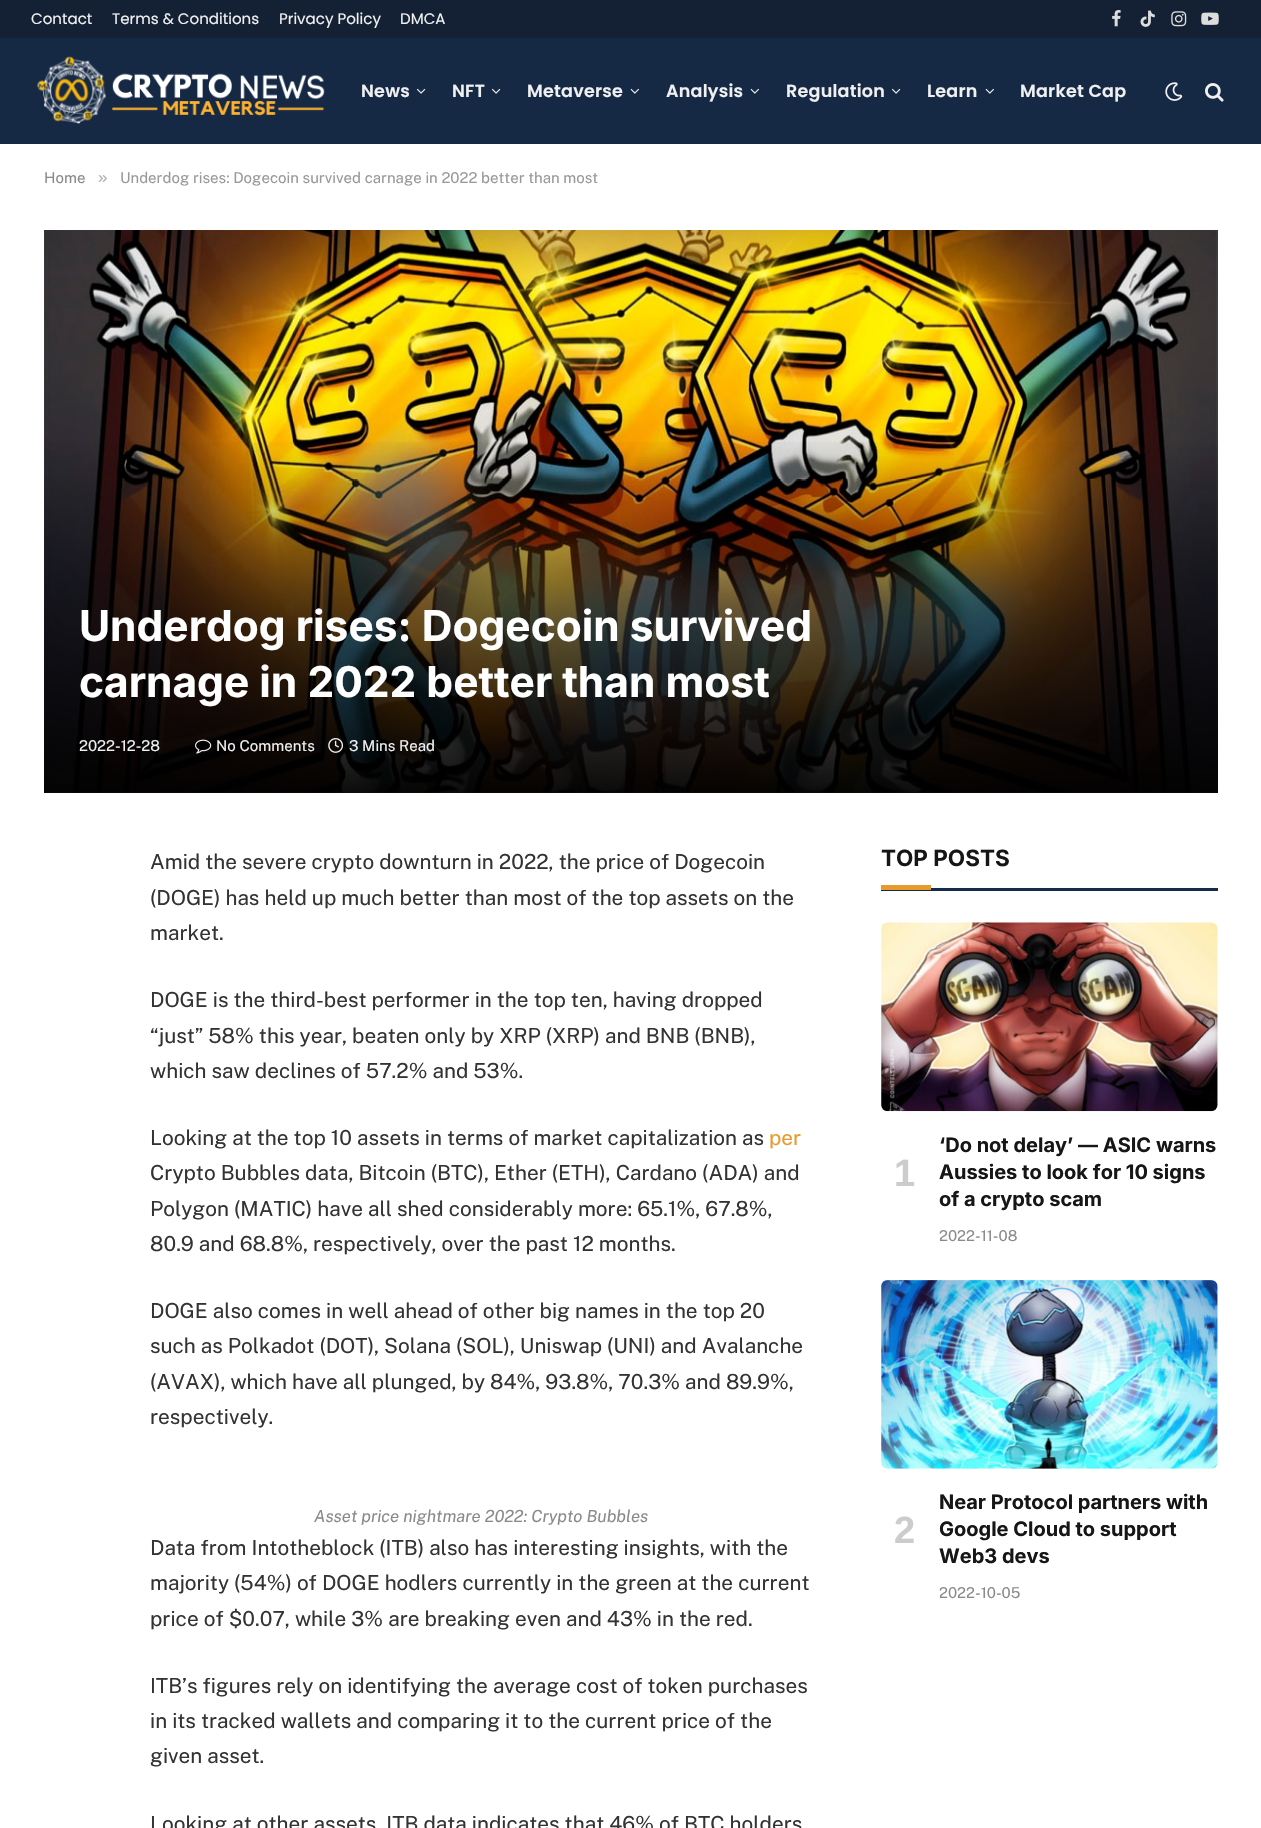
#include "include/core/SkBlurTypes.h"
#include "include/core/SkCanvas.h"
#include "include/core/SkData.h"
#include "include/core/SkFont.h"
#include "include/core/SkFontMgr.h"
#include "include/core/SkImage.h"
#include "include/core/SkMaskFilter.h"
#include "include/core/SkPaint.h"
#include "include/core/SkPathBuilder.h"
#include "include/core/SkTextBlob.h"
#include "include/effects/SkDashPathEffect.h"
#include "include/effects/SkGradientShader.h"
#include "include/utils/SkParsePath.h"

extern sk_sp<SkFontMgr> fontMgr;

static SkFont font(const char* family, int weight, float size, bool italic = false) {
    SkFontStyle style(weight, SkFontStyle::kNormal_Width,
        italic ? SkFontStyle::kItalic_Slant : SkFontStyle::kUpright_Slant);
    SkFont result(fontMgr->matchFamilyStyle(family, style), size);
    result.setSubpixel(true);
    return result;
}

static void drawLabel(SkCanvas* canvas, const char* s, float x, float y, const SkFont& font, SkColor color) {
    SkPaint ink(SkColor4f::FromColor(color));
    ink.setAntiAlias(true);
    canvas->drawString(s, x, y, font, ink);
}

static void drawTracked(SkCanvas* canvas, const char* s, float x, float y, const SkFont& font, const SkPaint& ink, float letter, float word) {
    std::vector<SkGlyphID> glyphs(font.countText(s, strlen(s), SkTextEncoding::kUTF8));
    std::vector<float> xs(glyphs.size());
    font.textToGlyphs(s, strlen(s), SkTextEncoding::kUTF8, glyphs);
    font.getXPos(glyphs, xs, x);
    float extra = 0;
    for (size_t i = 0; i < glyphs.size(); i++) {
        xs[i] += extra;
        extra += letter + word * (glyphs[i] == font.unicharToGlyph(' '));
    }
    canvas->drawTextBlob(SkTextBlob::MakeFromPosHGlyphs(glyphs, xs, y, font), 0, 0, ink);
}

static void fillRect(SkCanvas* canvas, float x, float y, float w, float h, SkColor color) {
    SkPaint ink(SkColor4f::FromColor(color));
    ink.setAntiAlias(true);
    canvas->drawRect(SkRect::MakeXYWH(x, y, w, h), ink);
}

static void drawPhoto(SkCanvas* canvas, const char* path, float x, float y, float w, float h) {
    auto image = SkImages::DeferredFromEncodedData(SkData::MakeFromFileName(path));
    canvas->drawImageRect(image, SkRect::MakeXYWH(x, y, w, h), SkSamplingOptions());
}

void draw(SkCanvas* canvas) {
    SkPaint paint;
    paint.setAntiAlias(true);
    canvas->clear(0xFFFFFFFF);
    fillRect(canvas, 0, 0, 1261, 38, 0xFF142135);
    SkFont font1 = font("Poppins", 400, 15.1f);
    drawLabel(canvas, "Contact", 31, 24, font1, 0xFFF0F0F0);
    drawLabel(canvas, "Terms & Conditions", 112, 24, font1, 0xFFF0F0F0);
    drawLabel(canvas, "Privacy Policy", 279, 24, font1, 0xFFF0F0F0);
    drawLabel(canvas, "DMCA", 400, 24, font1, 0xFFF0F0F0);
    drawPhoto(canvas, "assets/img1.png", 1112, 10, 9, 17);
    drawPhoto(canvas, "assets/img2.png", 1140, 10, 15, 17);
    drawPhoto(canvas, "assets/img3.png", 1171, 11, 16, 16);
    drawPhoto(canvas, "assets/img4.png", 1201, 12, 18, 13);
    fillRect(canvas, 0, 38, 1261, 106, 0xFF152844);
    drawPhoto(canvas, "assets/img5.png", 37, 56, 288, 68);
    SkFont font2 = font("Poppins", 600, 17.5f);
    paint.setColor(0xFFF0F0F0);
    drawTracked(canvas, "News", 361, 97, font2, paint, 0.25f, 0);
    drawPhoto(canvas, "assets/img6.png", 416, 88, 10, 6);
    drawTracked(canvas, "NFT", 452, 97, font2, paint, 0.25f, 0);
    drawPhoto(canvas, "assets/img6.png", 491, 88, 10, 6);
    drawTracked(canvas, "Metaverse", 527, 97, font2, paint, 0.25f, 0);
    drawPhoto(canvas, "assets/img7.png", 630, 88, 9, 6);
    drawTracked(canvas, "Analysis", 666, 97, font2, paint, 0.25f, 0);
    drawPhoto(canvas, "assets/img7.png", 750, 88, 9, 6);
    drawTracked(canvas, "Regulation", 786, 97, font2, paint, 0.25f, 0);
    drawPhoto(canvas, "assets/img6.png", 891, 88, 10, 6);
    drawTracked(canvas, "Learn", 927, 97, font2, paint, 0.25f, 0);
    drawPhoto(canvas, "assets/img7.png", 985, 88, 9, 6);
    drawTracked(canvas, "Market Cap", 1020, 97, font2, paint, 0.25f, 0);
    drawPhoto(canvas, "assets/img8.png", 1165, 82, 18, 19);
    drawPhoto(canvas, "assets/img9.png", 1205, 83, 19, 19);
    SkFont font3 = font("Public Sans", 400, 15);
    drawLabel(canvas, "Home", 44, 183, font3, 0xFF8A8A8A);
    SkFont font4 = font("Liberation Sans", 400, 17);
    drawLabel(canvas, "»", 98, 183, font4, 0xFFADADAD);
    drawLabel(canvas, "Underdog rises: Dogecoin survived carnage in 2022 better than most", 120, 183, font3, 0xFF999999);
    drawPhoto(canvas, "assets/img10.png", 44, 230, 1174, 563);
    {
        const SkColor colors[] = {0x00000000, 0xF2000000};
        const float stops[] = {0, 1};
        const SkPoint ends[] = {{631, 434}, {631, 793}};
        paint.setShader(SkGradientShader::MakeLinear(ends, colors, stops, 2, SkTileMode::kClamp));
        paint.setAlpha(255);
    }
    canvas->drawRect(SkRect::MakeXYWH(44, 442, 1174, 351), paint);
    SkFont font5 = font("Inter", 700, 42.5f);
    drawLabel(canvas, "Underdog rises: Dogecoin survived", 79, 641, font5, 0xFFFFFFFF);
    drawLabel(canvas, "carnage in 2022 better than most", 79, 697, font5, 0xFFFFFFFF);
    drawLabel(canvas, "2022-12-28", 79, 751, font3, 0xFFF0F0F0);
    drawPhoto(canvas, "assets/img11.png", 195, 739, 17, 15);
    drawLabel(canvas, "No Comments", 216, 751, font3, 0xFFF0F0F0);
    drawPhoto(canvas, "assets/img12.png", 328, 738, 16, 15);
    drawLabel(canvas, "3 Mins Read", 349, 751, font3, 0xFFF0F0F0);
    SkFont font6 = font("Public Sans", 400, 20.75f);
    drawLabel(canvas, "Amid the severe crypto downturn in 2022, the price of Dogecoin", 150, 869, font6, 0xFF333333);
    drawLabel(canvas, "(DOGE) has held up much better than most of the top assets on the", 150, 905, font6, 0xFF333333);
    drawLabel(canvas, "market.", 150, 940, font6, 0xFF333333);
    drawLabel(canvas, "DOGE is the third-best performer in the top ten, having dropped", 150, 1007, font6, 0xFF333333);
    drawLabel(canvas, "“just” 58% this year, beaten only by XRP (XRP) and BNB (BNB),", 150, 1043, font6, 0xFF333333);
    drawLabel(canvas, "which saw declines of 57.2% and 53%.", 150, 1078, font6, 0xFF333333);
    drawLabel(canvas, "Looking at the top 10 assets in terms of market capitalization as", 150, 1145, font6, 0xFF333333);
    drawLabel(canvas, "per", 769, 1145, font6, 0xFFE89B2D);
    drawLabel(canvas, "Crypto Bubbles data, Bitcoin (BTC), Ether (ETH), Cardano (ADA) and", 150, 1180, font6, 0xFF333333);
    drawLabel(canvas, "Polygon (MATIC) have all shed considerably more: 65.1%, 67.8%,", 150, 1216, font6, 0xFF333333);
    drawLabel(canvas, "80.9 and 68.8%, respectively, over the past 12 months.", 150, 1251, font6, 0xFF333333);
    drawLabel(canvas, "DOGE also comes in well ahead of other big names in the top 20", 150, 1318, font6, 0xFF333333);
    drawLabel(canvas, "such as Polkadot (DOT), Solana (SOL), Uniswap (UNI) and Avalanche", 150, 1353, font6, 0xFF333333);
    drawLabel(canvas, "(AVAX), which have all plunged, by 84%, 93.8%, 70.3% and 89.9%,", 150, 1389, font6, 0xFF333333);
    drawLabel(canvas, "respectively.", 150, 1424, font6, 0xFF333333);
    SkFont font7 = font("Public Sans", 100, 16.75f, true);
    drawLabel(canvas, "Asset price nightmare 2022: Crypto Bubbles", 314, 1522, font7, 0xFF8A8A8A);
    drawLabel(canvas, "Data from Intotheblock (ITB) also has interesting insights, with the", 150, 1555, font6, 0xFF333333);
    drawLabel(canvas, "majority (54%) of DOGE hodlers currently in the green at the current", 150, 1590, font6, 0xFF333333);
    drawLabel(canvas, "price of $0.07, while 3% are breaking even and 43% in the red.", 150, 1626, font6, 0xFF333333);
    drawLabel(canvas, "ITB’s figures rely on identifying the average cost of token purchases", 150, 1693, font6, 0xFF333333);
    drawLabel(canvas, "in its tracked wallets and comparing it to the current price of the", 150, 1728, font6, 0xFF333333);
    drawLabel(canvas, "given asset.", 150, 1763, font6, 0xFF333333);
    drawLabel(canvas, "Looking at other assets, ITB data indicates that 46% of BTC holders", 150, 1831, font6, 0xFF333333);
    fillRect(canvas, 881, 888, 337, 3, 0xFF152B4B);
    SkFont font8 = font("Inter", 700, 22.5f);
    drawLabel(canvas, "TOP POSTS", 881, 866, font8, 0xFF161616);
    fillRect(canvas, 881, 885, 50, 5, 0xFFE89B2D);
    drawPhoto(canvas, "assets/img13.png", 881, 922, 337, 190);
    SkFont font9 = font("Liberation Sans", 700, 38);
    drawLabel(canvas, "1", 894, 1186, font9, 0xFFCCCCCC);
    SkFont font10 = font("Inter", 700, 20);
    drawLabel(canvas, "‘Do not delay’ — ASIC warns", 939, 1152, font10, 0xFF161616);
    drawLabel(canvas, "Aussies to look for 10 signs", 939, 1179, font10, 0xFF161616);
    drawLabel(canvas, "of a crypto scam", 939, 1206, font10, 0xFF161616);
    drawLabel(canvas, "2022-11-08", 939, 1241, font3, 0xFF8A8A8A);
    drawPhoto(canvas, "assets/img14.png", 881, 1280, 337, 189);
    drawLabel(canvas, "2", 894, 1543, font9, 0xFFCCCCCC);
    drawLabel(canvas, "Near Protocol partners with", 939, 1509, font10, 0xFF161616);
    drawLabel(canvas, "Google Cloud to support", 939, 1536, font10, 0xFF161616);
    drawLabel(canvas, "Web3 devs", 939, 1563, font10, 0xFF161616);
    drawLabel(canvas, "2022-10-05", 939, 1598, font3, 0xFF8A8A8A);
}
